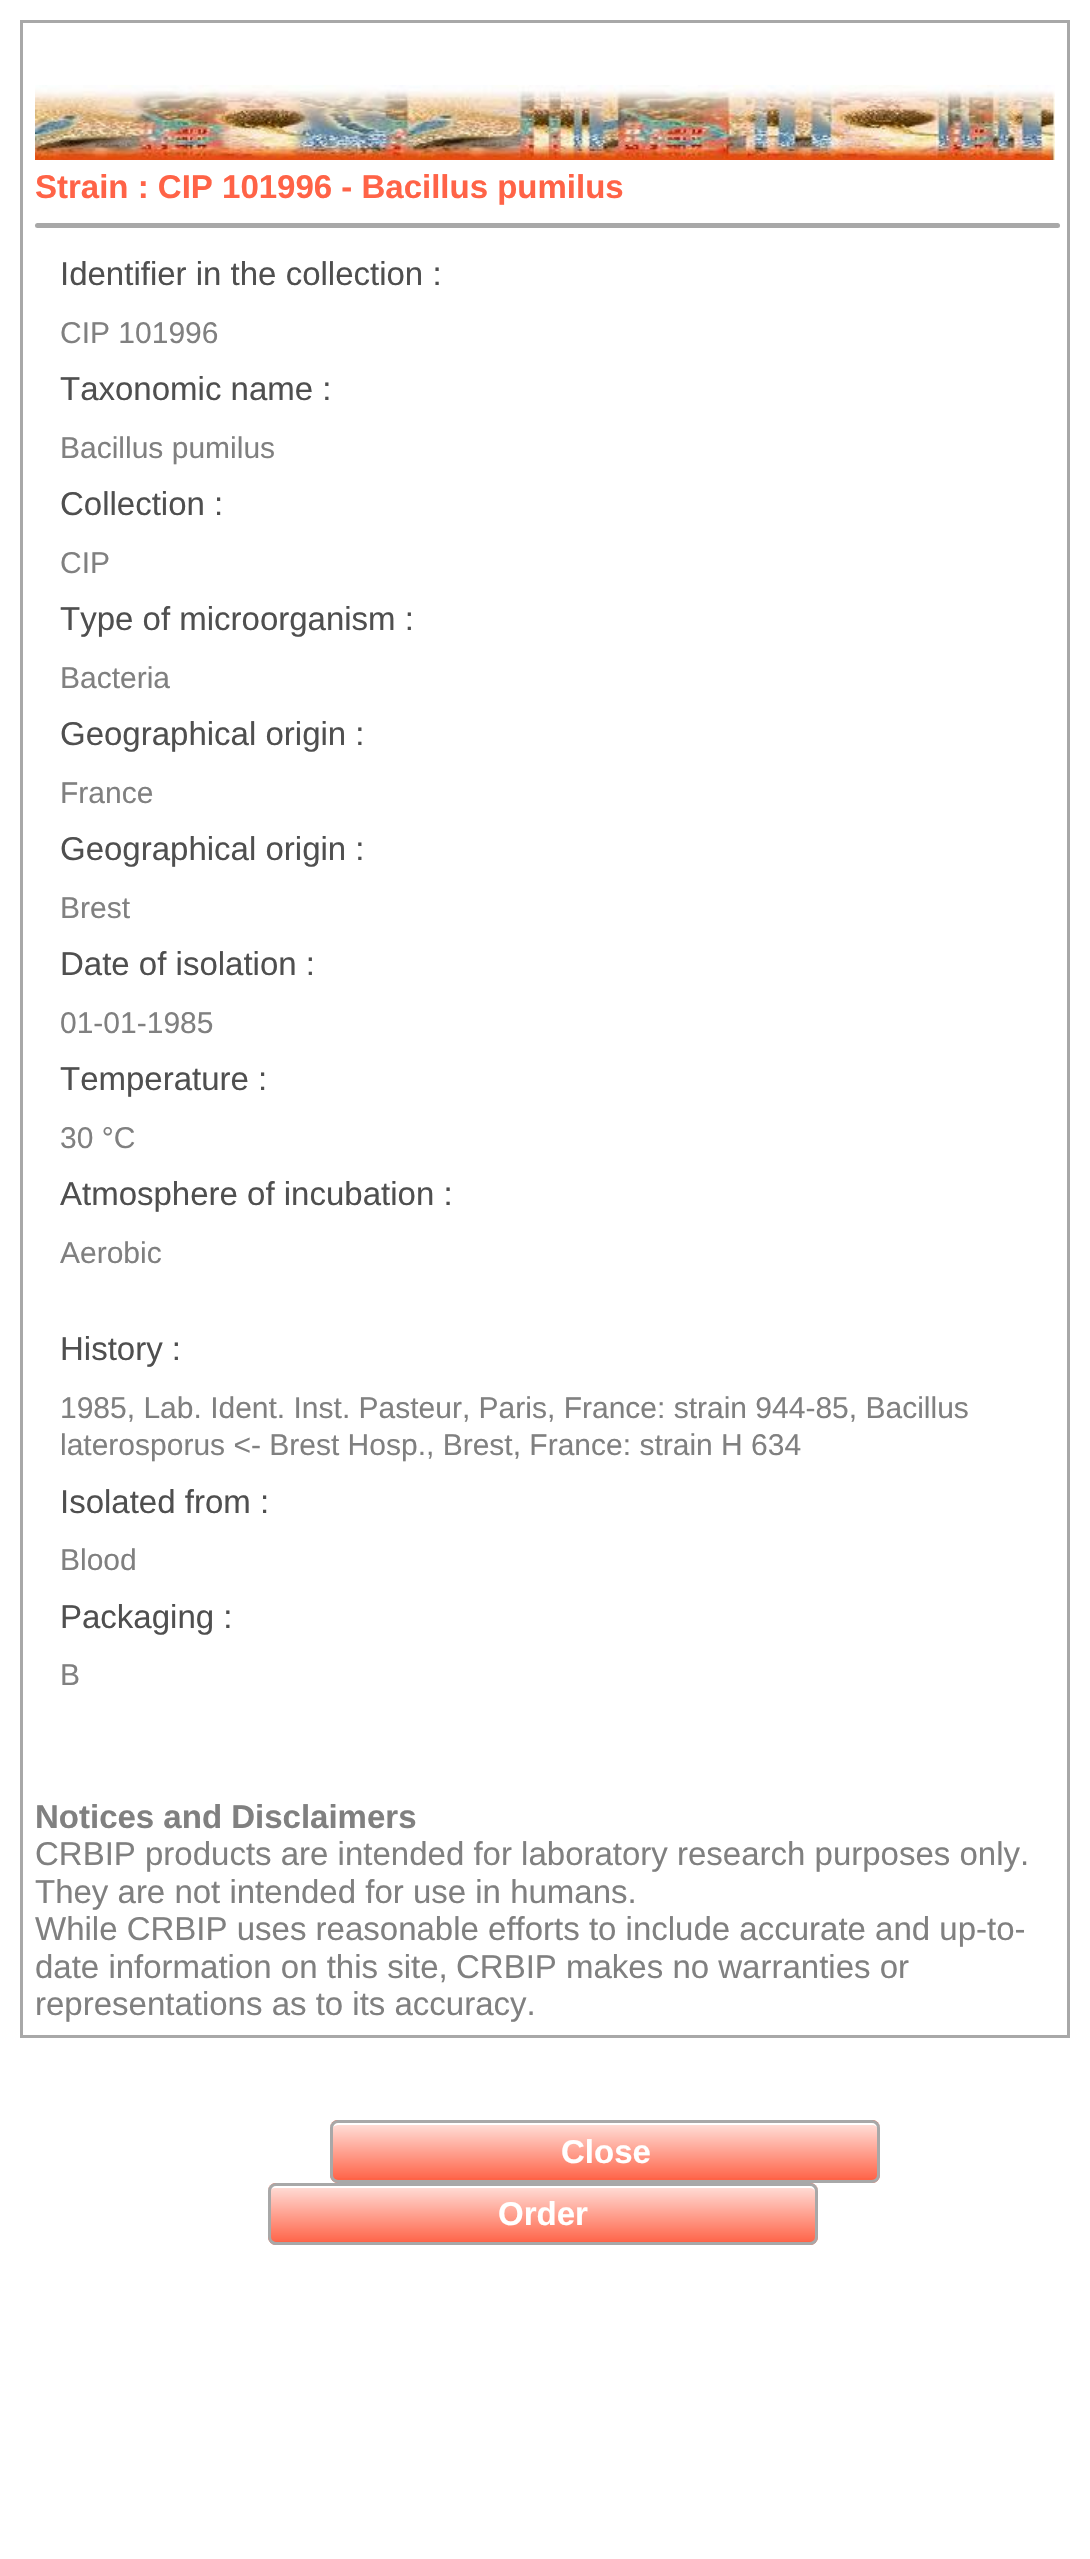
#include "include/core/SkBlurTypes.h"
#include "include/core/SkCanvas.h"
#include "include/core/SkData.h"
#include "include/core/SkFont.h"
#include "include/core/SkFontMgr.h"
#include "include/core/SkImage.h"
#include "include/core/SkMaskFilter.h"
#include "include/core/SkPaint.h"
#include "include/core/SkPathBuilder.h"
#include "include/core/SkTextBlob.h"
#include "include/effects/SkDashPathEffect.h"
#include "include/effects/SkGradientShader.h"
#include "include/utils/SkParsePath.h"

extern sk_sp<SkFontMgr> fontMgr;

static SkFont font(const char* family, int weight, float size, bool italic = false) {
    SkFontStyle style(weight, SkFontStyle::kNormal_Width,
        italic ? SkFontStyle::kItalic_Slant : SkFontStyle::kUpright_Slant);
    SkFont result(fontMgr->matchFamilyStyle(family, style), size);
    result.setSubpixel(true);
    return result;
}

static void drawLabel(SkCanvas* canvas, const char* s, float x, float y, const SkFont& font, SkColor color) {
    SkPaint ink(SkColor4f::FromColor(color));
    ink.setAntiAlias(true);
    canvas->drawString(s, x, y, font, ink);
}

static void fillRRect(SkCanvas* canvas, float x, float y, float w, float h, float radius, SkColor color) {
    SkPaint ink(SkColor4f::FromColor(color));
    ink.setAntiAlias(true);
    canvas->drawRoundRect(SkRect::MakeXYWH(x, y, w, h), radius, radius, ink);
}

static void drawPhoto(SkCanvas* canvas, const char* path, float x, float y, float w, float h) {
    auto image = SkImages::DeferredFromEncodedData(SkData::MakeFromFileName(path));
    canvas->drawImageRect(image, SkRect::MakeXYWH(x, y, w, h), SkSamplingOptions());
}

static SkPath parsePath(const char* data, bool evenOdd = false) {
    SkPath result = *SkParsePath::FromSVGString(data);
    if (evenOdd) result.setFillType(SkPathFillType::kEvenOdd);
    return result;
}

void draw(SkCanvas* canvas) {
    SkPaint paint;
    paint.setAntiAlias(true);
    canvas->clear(0xFFFFFFFF);
    paint.setStroke(true);
    paint.setStrokeWidth(3);
    paint.setColor(0xFFA8A8A8);
    canvas->drawRect(SkRect::MakeXYWH(21.5f, 21.5f, 1047, 2015), paint);
    drawPhoto(canvas, "assets/img1.png", 35, 85, 1020, 75);
    SkFont font1 = font("Liberation Sans", 700, 33);
    drawLabel(canvas, "Strain : CIP 101996 - Bacillus pumilus", 35, 198, font1, 0xFFFF6347);
    fillRRect(canvas, 35, 223, 1025, 5, 2.5f, 0xFFA8A8A8);
    SkFont font2 = font("Liberation Sans", 400, 33);
    drawLabel(canvas, "Identifier in the collection :", 60, 285, font2, 0xFF4F4F4F);
    SkFont font3 = font("Liberation Sans", 400, 30);
    drawLabel(canvas, "CIP 101996", 60, 343, font3, 0xFF808080);
    drawLabel(canvas, "Taxonomic name :", 60, 400, font2, 0xFF4F4F4F);
    drawLabel(canvas, "Bacillus pumilus", 60, 458, font3, 0xFF808080);
    drawLabel(canvas, "Collection :", 60, 515, font2, 0xFF4F4F4F);
    drawLabel(canvas, "CIP", 60, 573, font3, 0xFF808080);
    drawLabel(canvas, "Type of microorganism :", 60, 630, font2, 0xFF4F4F4F);
    drawLabel(canvas, "Bacteria", 60, 688, font3, 0xFF808080);
    drawLabel(canvas, "Geographical origin :", 60, 745, font2, 0xFF4F4F4F);
    drawLabel(canvas, "France", 60, 803, font3, 0xFF808080);
    drawLabel(canvas, "Geographical origin :", 60, 860, font2, 0xFF4F4F4F);
    drawLabel(canvas, "Brest", 60, 918, font3, 0xFF808080);
    drawLabel(canvas, "Date of isolation :", 60, 975, font2, 0xFF4F4F4F);
    drawLabel(canvas, "01-01-1985", 60, 1033, font3, 0xFF808080);
    drawLabel(canvas, "Temperature :", 60, 1090, font2, 0xFF4F4F4F);
    drawLabel(canvas, "30 °C", 60, 1148, font3, 0xFF808080);
    drawLabel(canvas, "Atmosphere of incubation :", 60, 1205, font2, 0xFF4F4F4F);
    drawLabel(canvas, "Aerobic", 60, 1263, font3, 0xFF808080);
    drawLabel(canvas, "History :", 60, 1360, font2, 0xFF4F4F4F);
    drawLabel(canvas, "1985, Lab. Ident. Inst. Pasteur, Paris, France: strain 944-85, Bacillus", 60, 1418, font3, 0xFF808080);
    drawLabel(canvas, "laterosporus <- Brest Hosp., Brest, France: strain H 634", 60, 1455, font3, 0xFF808080);
    drawLabel(canvas, "Isolated from :", 60, 1513, font2, 0xFF4F4F4F);
    drawLabel(canvas, "Blood", 60, 1570, font3, 0xFF808080);
    drawLabel(canvas, "Packaging :", 60, 1628, font2, 0xFF4F4F4F);
    drawLabel(canvas, "B", 60, 1685, font3, 0xFF808080);
    drawLabel(canvas, "Notices and Disclaimers", 35, 1828, font1, 0xFF808080);
    drawLabel(canvas, "CRBIP products are intended for laboratory research purposes only.", 35, 1865, font2, 0xFF808080);
    drawLabel(canvas, "They are not intended for use in humans.", 35, 1903, font2, 0xFF808080);
    drawLabel(canvas, "While CRBIP uses reasonable efforts to include accurate and up-to-", 35, 1940, font2, 0xFF808080);
    drawLabel(canvas, "date information on this site,", 35, 1978, font2, 0xFF808080);
    drawLabel(canvas, "CRBIP makes no warranties or", 456, 1978, font2, 0xFF808080);
    drawLabel(canvas, "representations as to its accuracy.", 35, 2015, font2, 0xFF808080);
    fillRRect(canvas, 330, 2120, 550, 63, 8, 0xFFFF6347);
    canvas->save();
    canvas->clipPath(parsePath("M338 2120H872C876.5 2120 880 2123.5 880 2128V2175C880 2179.5 876.5 2183 872 2183H338C333.5 2183 330 2179.5 330 2175V2128C330 2123.5 333.5 2120 338 2120Z"), true);
    paint.setStroke(false);
    {
        const SkColor colors[] = {0xCCFFFFFF, 0x00FFFFFF};
        const float stops[] = {0, 1};
        const SkPoint ends[] = {{333, 2123}, {333, 2180}};
        paint.setShader(SkGradientShader::MakeLinear(ends, colors, stops, 2, SkTileMode::kClamp));
        paint.setAlpha(255);
    }
    canvas->drawRect(SkRect::MakeXYWH(330, 2123, 550, 55), paint);
    canvas->restore();
    paint.setShader(nullptr);
    paint.setColor(0xFFFFFFFF);
    canvas->drawPath(parsePath("M338 2125H872C875 2125 878 2127 878 2130V2128C878 2125 876 2123 873 2123H338C336 2123 333 2125 333 2127C334 2126 336 2125 338 2125Z"), paint);
    paint.setStroke(true);
    paint.setColor(0xFFA8A8A8);
    canvas->drawRoundRect(SkRect::MakeXYWH(331.5f, 2121.5f, 547, 60), 6.5f, 6.5f, paint);
    drawLabel(canvas, "Close", 561, 2163, font1, 0xFFFFFFFF);
    fillRRect(canvas, 268, 2183, 550, 62, 8, 0xFFFF6347);
    canvas->save();
    canvas->clipPath(parsePath("M276 2183H810C814.5 2183 818 2186.5 818 2191V2237C818 2241.5 814.5 2245 810 2245H276C271.5 2245 268 2241.5 268 2237V2191C268 2186.5 271.5 2183 276 2183Z"), true);
    paint.setStroke(false);
    {
        const SkColor colors[] = {0xCCFFFFFF, 0x00FFFFFF};
        const float stops[] = {0, 1};
        const SkPoint ends[] = {{270, 2185}, {270, 2243}};
        paint.setShader(SkGradientShader::MakeLinear(ends, colors, stops, 2, SkTileMode::kClamp));
        paint.setAlpha(255);
    }
    canvas->drawRect(SkRect::MakeXYWH(268, 2185, 550, 56), paint);
    canvas->restore();
    paint.setShader(nullptr);
    paint.setColor(0xFFFFFFFF);
    canvas->drawPath(parsePath("M275 2188H810C813 2188 815 2190 815 2192C815 2189 814 2185 810 2185H275C271 2185 270 2189 270 2192C270 2190 272 2188 275 2188Z"), paint);
    paint.setStroke(true);
    paint.setColor(0xFFA8A8A8);
    canvas->drawRoundRect(SkRect::MakeXYWH(269.5f, 2184.5f, 547, 59), 6.5f, 6.5f, paint);
    drawLabel(canvas, "Order", 498, 2225, font1, 0xFFFFFFFF);
}
